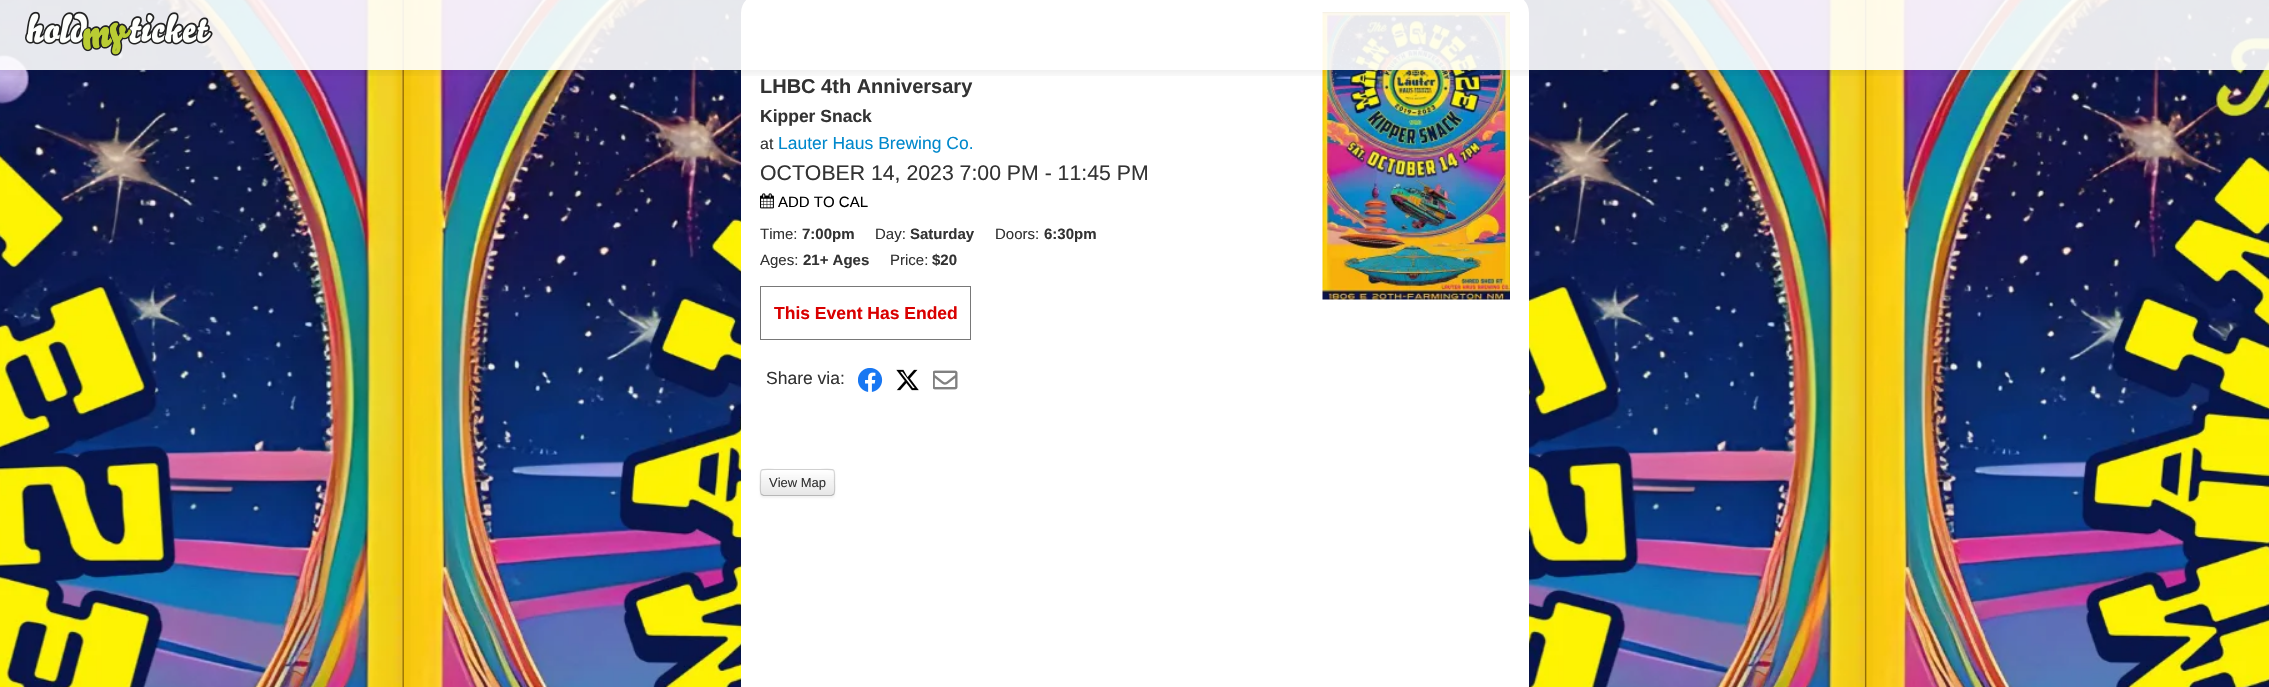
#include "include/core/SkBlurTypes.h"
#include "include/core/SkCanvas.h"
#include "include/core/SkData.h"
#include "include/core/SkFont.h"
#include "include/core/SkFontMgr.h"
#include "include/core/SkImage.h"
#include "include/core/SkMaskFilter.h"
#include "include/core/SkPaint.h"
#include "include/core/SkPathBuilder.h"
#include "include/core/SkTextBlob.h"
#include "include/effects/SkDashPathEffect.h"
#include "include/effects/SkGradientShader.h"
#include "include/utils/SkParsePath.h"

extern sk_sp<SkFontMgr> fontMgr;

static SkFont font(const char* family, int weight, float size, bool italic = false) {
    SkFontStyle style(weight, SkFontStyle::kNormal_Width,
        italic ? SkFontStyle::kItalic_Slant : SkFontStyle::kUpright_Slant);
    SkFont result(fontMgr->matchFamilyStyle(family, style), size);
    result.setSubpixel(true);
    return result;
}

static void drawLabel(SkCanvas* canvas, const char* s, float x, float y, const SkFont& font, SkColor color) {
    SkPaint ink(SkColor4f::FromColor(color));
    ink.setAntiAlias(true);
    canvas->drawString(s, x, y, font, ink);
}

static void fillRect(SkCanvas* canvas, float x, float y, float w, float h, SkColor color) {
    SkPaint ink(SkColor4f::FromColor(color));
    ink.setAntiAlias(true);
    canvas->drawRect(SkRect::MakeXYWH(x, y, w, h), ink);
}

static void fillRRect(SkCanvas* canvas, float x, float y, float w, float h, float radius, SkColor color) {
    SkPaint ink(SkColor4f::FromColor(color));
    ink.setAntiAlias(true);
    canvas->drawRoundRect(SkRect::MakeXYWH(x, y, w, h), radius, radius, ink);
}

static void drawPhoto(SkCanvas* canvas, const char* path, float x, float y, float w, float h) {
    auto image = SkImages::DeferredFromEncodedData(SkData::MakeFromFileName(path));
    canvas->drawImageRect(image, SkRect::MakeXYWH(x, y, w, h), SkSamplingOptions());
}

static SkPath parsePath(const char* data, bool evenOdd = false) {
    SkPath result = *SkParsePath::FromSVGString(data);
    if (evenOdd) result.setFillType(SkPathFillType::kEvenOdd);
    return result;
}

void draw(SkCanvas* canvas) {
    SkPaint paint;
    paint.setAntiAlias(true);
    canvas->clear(0xFFFFFFFF);
    drawPhoto(canvas, "assets/img1.png", 0, 0, 2269, 687);
    fillRRect(canvas, 741, -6, 788, 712, 19, 0xFFFFFFFF);
    drawPhoto(canvas, "assets/img4.png", 1322, 12, 188, 288);
    canvas->save();
    canvas->clipRect(SkRect::MakeXYWH(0, 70, 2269, 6));
    paint.setColor(0x1A000000);
    paint.setMaskFilter(SkMaskFilter::MakeBlur(kNormal_SkBlurStyle, 6));
    canvas->drawRect(SkRect::MakeXYWH(0, 1, 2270, 70), paint);
    paint.setMaskFilter(nullptr);
    canvas->restore();
    fillRect(canvas, 0, 0, 2269, 70, 0xE6FFFFFF);
    drawPhoto(canvas, "assets/img2.png", 25, 11, 188, 45);
    SkFont font1 = font("Liberation Sans", 700, 20);
    drawLabel(canvas, "LHBC 4th Anniversary", 760, 93, font1, 0xFF333333);
    SkFont font2 = font("Liberation Sans", 700, 17.5f);
    drawLabel(canvas, "Kipper Snack", 760, 122, font2, 0xFF333333);
    SkFont font3 = font("Liberation Sans", 400, 16);
    drawLabel(canvas, "at", 760, 149, font3, 0xFF333333);
    SkFont font4 = font("Liberation Sans", 400, 17.5f);
    drawLabel(canvas, "Lauter Haus Brewing Co.", 778, 149, font4, 0xFF0088CC);
    SkFont font5 = font("Liberation Sans", 400, 21.25f);
    drawLabel(canvas, "OCTOBER 14, 2023 7:00 PM - 11:45 PM", 760, 180, font5, 0xFF333333);
    drawPhoto(canvas, "assets/img3.png", 760, 193, 14, 16);
    SkFont font6 = font("Liberation Sans", 400, 15);
    drawLabel(canvas, "ADD TO CAL", 778, 207, font6, 0xFF000000);
    drawLabel(canvas, "Time:", 760, 239, font6, 0xFF333333);
    SkFont font7 = font("Liberation Sans", 700, 15);
    drawLabel(canvas, "7:00pm", 802, 239, font7, 0xFF333333);
    drawLabel(canvas, "Day:", 875, 239, font6, 0xFF333333);
    drawLabel(canvas, "Saturday", 910, 239, font7, 0xFF333333);
    drawLabel(canvas, "Doors:", 995, 239, font6, 0xFF333333);
    drawLabel(canvas, "6:30pm", 1044, 239, font7, 0xFF333333);
    drawLabel(canvas, "Ages:", 760, 265, font6, 0xFF333333);
    drawLabel(canvas, "21+ Ages", 803, 265, font7, 0xFF333333);
    drawLabel(canvas, "Price:", 890, 265, font6, 0xFF333333);
    drawLabel(canvas, "$20", 932, 265, font7, 0xFF333333);
    paint.setStroke(true);
    paint.setStrokeWidth(1);
    paint.setColor(0xFF787878);
    canvas->drawRect(SkRect::MakeXYWH(760.5f, 286.5f, 210, 53), paint);
    drawLabel(canvas, "This Event Has Ended", 774, 319, font2, 0xFFD90000);
    drawLabel(canvas, "Share via:", 766, 384, font4, 0xFF333333);
    drawPhoto(canvas, "assets/img5.png", 858, 368, 25, 24);
    drawPhoto(canvas, "assets/img6.png", 896, 369, 23, 22);
    drawPhoto(canvas, "assets/img7.png", 933, 370, 25, 20);
    paint.setStroke(false);
    paint.setColor(0x0D000000);
    paint.setMaskFilter(SkMaskFilter::MakeBlur(kNormal_SkBlurStyle, 1));
    canvas->drawRoundRect(SkRect::MakeXYWH(760, 470, 75, 28), 4, 4, paint);
    paint.setMaskFilter(nullptr);
    fillRRect(canvas, 760, 469, 75, 27, 4, 0xFFF5F5F5);
    canvas->save();
    canvas->clipPath(parsePath("M764 469H831C833 469 835 471 835 473V492C835 494 833 496 831 496H764C762 496 760 494 760 492V473C760 471 762 469 764 469Z"), true);
    {
        const SkColor colors[] = {0xFFFFFFFF, 0xFFE6E6E6};
        const float stops[] = {0, 1};
        const SkPoint ends[] = {{798, 470}, {798, 495}};
        paint.setShader(SkGradientShader::MakeLinear(ends, colors, stops, 2, SkTileMode::kClamp));
        paint.setAlpha(255);
    }
    canvas->drawRect(SkRect::MakeXYWH(760, 470, 75, 25), paint);
    canvas->restore();
    paint.setStroke(true);
    paint.setStrokeWidth(1.2f);
    paint.setShader(nullptr);
    paint.setColor(0x40000000);
    canvas->drawPath(parsePath("M833.5 494.5L831.5 495.5H763.5L761.5 494.5"), paint);
    paint.setColor(0x26000000);
    canvas->drawPath(parsePath("M761.5 494.5C759.5 492.5 760.5 485 760.5 482.5C760.5 467 758.5 469.5 775 469.5H820C836.5 469.5 834.5 467 834.5 482.5C834.5 485 835.5 492.5 833.5 494.5"), paint);
    SkFont font8 = font("Liberation Sans", 400, 13);
    drawLabel(canvas, "View Map", 769, 487, font8, 0xFF333333);
}
